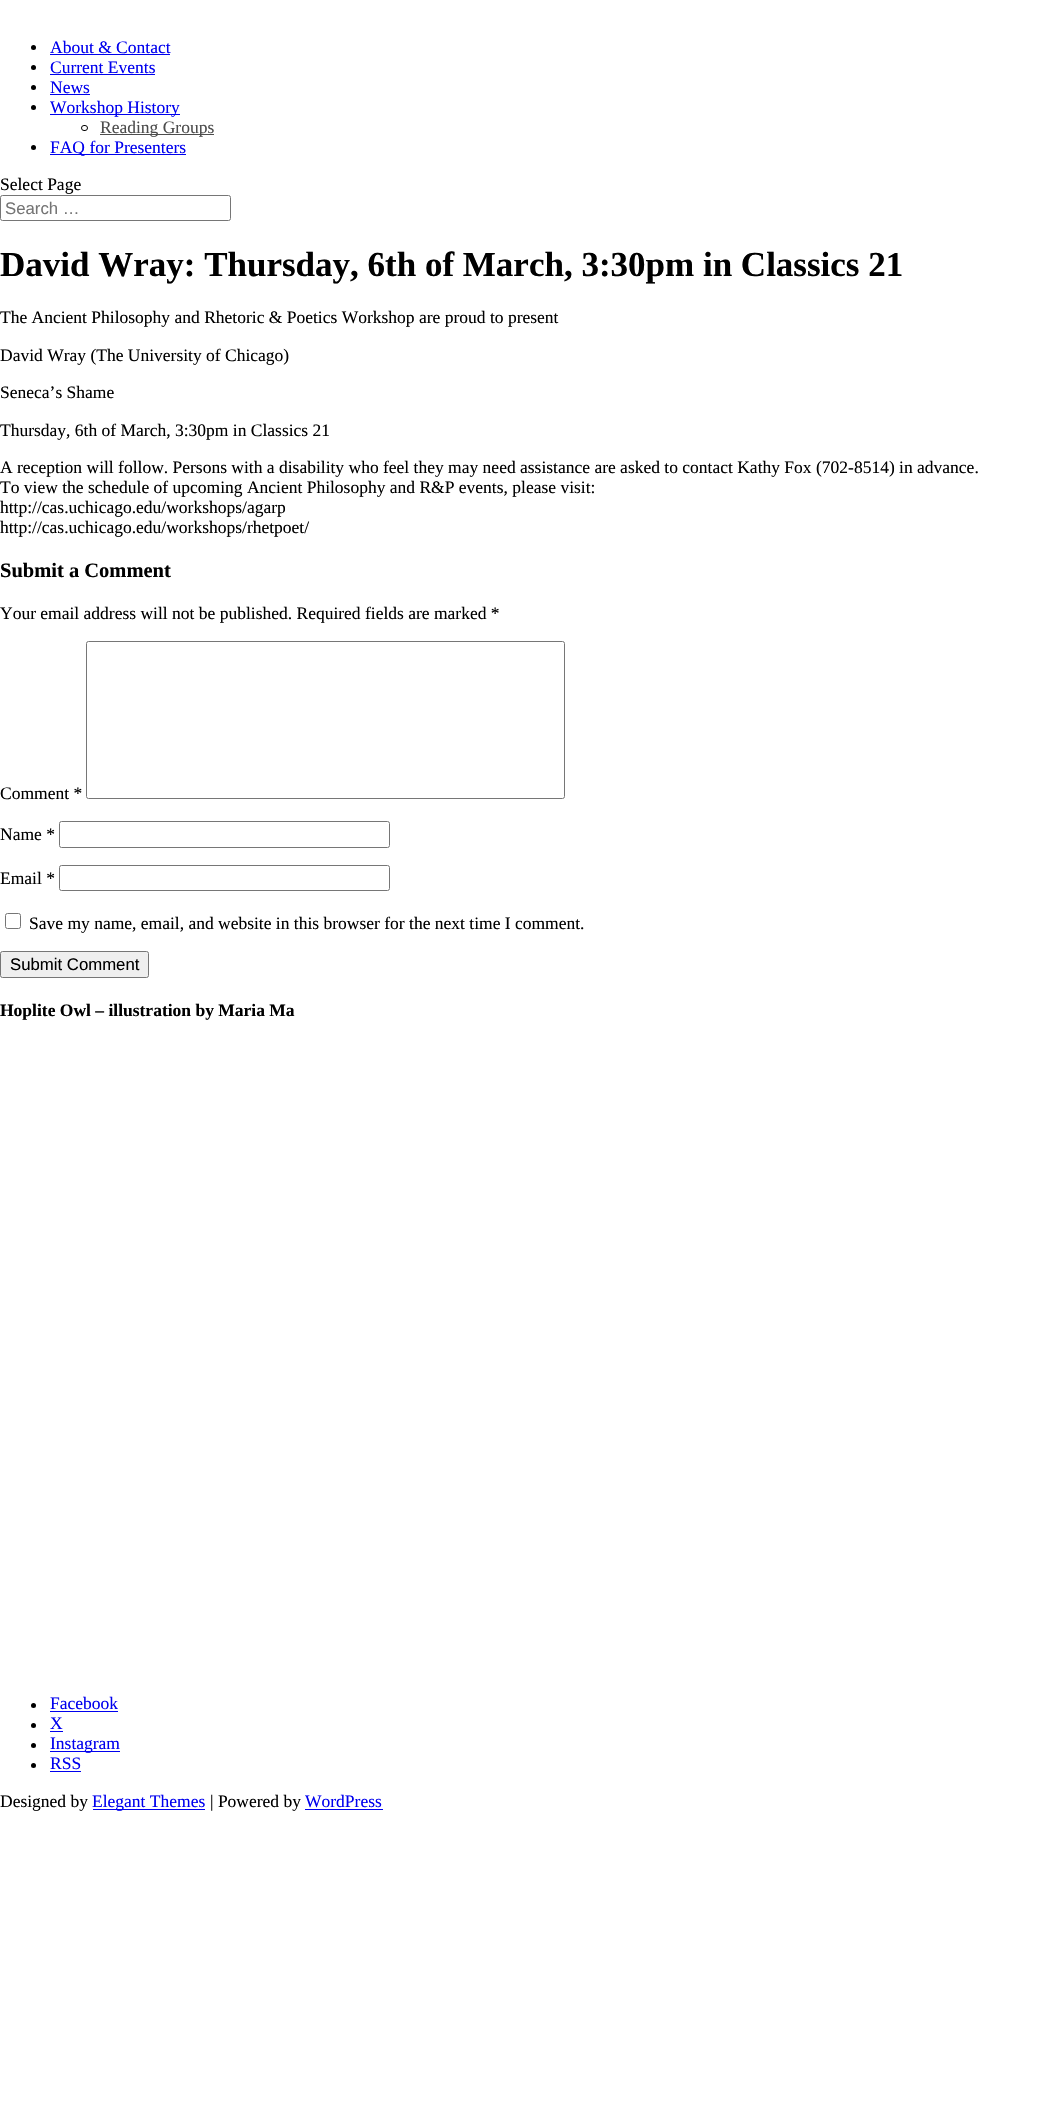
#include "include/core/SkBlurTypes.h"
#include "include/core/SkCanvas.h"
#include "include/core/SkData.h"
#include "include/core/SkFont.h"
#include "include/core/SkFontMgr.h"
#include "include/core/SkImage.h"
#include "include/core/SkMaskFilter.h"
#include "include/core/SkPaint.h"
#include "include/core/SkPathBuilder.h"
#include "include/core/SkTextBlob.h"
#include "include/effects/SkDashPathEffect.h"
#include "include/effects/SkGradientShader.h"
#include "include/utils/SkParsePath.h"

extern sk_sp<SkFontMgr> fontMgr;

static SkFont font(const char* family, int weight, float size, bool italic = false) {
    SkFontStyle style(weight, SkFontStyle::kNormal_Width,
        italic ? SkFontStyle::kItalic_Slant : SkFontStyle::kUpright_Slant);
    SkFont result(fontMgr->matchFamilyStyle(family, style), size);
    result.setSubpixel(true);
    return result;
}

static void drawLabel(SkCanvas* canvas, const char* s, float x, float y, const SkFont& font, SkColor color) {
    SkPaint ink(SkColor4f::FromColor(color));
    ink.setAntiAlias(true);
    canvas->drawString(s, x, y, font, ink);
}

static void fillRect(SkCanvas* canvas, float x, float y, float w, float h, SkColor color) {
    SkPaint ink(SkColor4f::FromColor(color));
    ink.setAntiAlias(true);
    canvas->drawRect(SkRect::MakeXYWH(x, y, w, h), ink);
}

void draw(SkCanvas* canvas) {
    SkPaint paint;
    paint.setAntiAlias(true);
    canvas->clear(0xFFFFFFFF);
    paint.setColor(0xFF000000);
    canvas->drawCircle(33.5f, 47.5f, 2.5f, paint);
    SkFont font1 = font("Liberation Serif", 400, 17.5f);
    drawLabel(canvas, "About & Contact", 50, 53, font1, 0xFF0000EE);
    fillRect(canvas, 50, 54, 120, 1, 0xFF0000EE);
    canvas->drawCircle(33.5f, 67.5f, 2.5f, paint);
    drawLabel(canvas, "Current Events", 50, 73, font1, 0xFF0000EE);
    fillRect(canvas, 50, 74, 105, 1, 0xFF0000EE);
    canvas->drawCircle(33.5f, 87.5f, 2.5f, paint);
    drawLabel(canvas, "News", 50, 93, font1, 0xFF0000EE);
    fillRect(canvas, 50, 94, 40, 1, 0xFF0000EE);
    canvas->drawCircle(33.5f, 107.5f, 2.5f, paint);
    fillRect(canvas, 50, 114, 130, 1, 0xFF0000EE);
    drawLabel(canvas, "Workshop History", 50, 113, font1, 0xFF0000EE);
    paint.setStroke(true);
    paint.setStrokeWidth(1);
    canvas->drawRoundRect(SkRect::MakeXYWH(81.5f, 125.5f, 6, 5), 2.5f, 2.5f, paint);
    fillRect(canvas, 100, 134, 114, 1, 0xFF4D4D4D);
    drawLabel(canvas, "Reading Groups", 100, 133, font1, 0xFF4C4C4C);
    paint.setStroke(false);
    canvas->drawCircle(33.5f, 147.5f, 2.5f, paint);
    fillRect(canvas, 50, 154, 136, 1, 0xFF0000EE);
    drawLabel(canvas, "FAQ for Presenters", 50, 153, font1, 0xFF0000EE);
    drawLabel(canvas, "Select Page", 0, 190, font1, 0xFF000000);
    paint.setStroke(true);
    paint.setColor(0xFF767676);
    canvas->drawRoundRect(SkRect::MakeXYWH(0.5f, 195.5f, 230, 25), 2, 2, paint);
    SkFont font2 = font("Liberation Sans", 400, 16.75f);
    drawLabel(canvas, "Search …", 5, 214, font2, 0xFF757575);
    SkFont font3 = font("Liberation Serif", 700, 35);
    drawLabel(canvas, "David Wray: Thursday, 6th of March, 3:30pm in Classics 21", 0, 276, font3, 0xFF000000);
    drawLabel(canvas, "The Ancient Philosophy and Rhetoric & Poetics Workshop are proud to present", 0, 323, font1, 0xFF000000);
    drawLabel(canvas, "David Wray (The University of Chicago)", 0, 361, font1, 0xFF000000);
    drawLabel(canvas, "Seneca’s Shame", 0, 398, font1, 0xFF000000);
    drawLabel(canvas, "Thursday, 6th of March, 3:30pm in Classics 21", 0, 436, font1, 0xFF000000);
    drawLabel(canvas, "A reception will follow. Persons with a disability who feel they may need assistance are asked to contact Kathy Fox (702-8514) in advance.", 0, 473, font1, 0xFF000000);
    drawLabel(canvas, "To view the schedule of upcoming Ancient Philosophy and R&P events, please visit:", 0, 493, font1, 0xFF000000);
    drawLabel(canvas, "http://cas.uchicago.edu/workshops/agarp", 0, 513, font1, 0xFF000000);
    drawLabel(canvas, "http://cas.uchicago.edu/workshops/rhetpoet/", 0, 533, font1, 0xFF000000);
    SkFont font4 = font("Liberation Serif", 700, 20.5f);
    drawLabel(canvas, "Submit a Comment", 0, 577, font4, 0xFF000000);
    drawLabel(canvas, "Your email address will not be published. Required fields are marked *", 0, 619, font1, 0xFF000000);
    drawLabel(canvas, "Comment *", 0, 799, font1, 0xFF000000);
    canvas->drawRoundRect(SkRect::MakeXYWH(86.5f, 641.5f, 478, 157), 2, 2, paint);
    drawLabel(canvas, "Name *", 0, 840, font1, 0xFF000000);
    canvas->drawRoundRect(SkRect::MakeXYWH(59.5f, 821.5f, 330, 26), 2, 2, paint);
    drawLabel(canvas, "Email *", 0, 884, font1, 0xFF000000);
    canvas->drawRoundRect(SkRect::MakeXYWH(59.5f, 865.5f, 330, 25), 2, 2, paint);
    canvas->drawRoundRect(SkRect::MakeXYWH(5.5f, 913.5f, 15, 15), 2, 2, paint);
    drawLabel(canvas, "Save my name, email, and website in this browser for the next time I comment.", 29, 929, font1, 0xFF000000);
    paint.setStroke(false);
    paint.setColor(0xFFEFEFEF);
    canvas->drawRoundRect(SkRect::MakeXYWH(0.5f, 951.5f, 148, 26), 2, 2, paint);
    paint.setStroke(true);
    paint.setColor(0xFF767676);
    canvas->drawRoundRect(SkRect::MakeXYWH(0.5f, 951.5f, 148, 26), 2, 2, paint);
    drawLabel(canvas, "Submit Comment", 10, 970, font2, 0xFF000000);
    SkFont font5 = font("Liberation Serif", 700, 17.5f);
    drawLabel(canvas, "Hoplite Owl – illustration by Maria Ma", 0, 1016, font5, 0xFF000000);
    paint.setStroke(false);
    paint.setColor(0xFF000000);
    canvas->drawCircle(33.5f, 1705.5f, 2.5f, paint);
    drawLabel(canvas, "Facebook", 50, 1709, font1, 0xFF0000EE);
    fillRect(canvas, 50, 1711, 68, 1, 0xFF0000EE);
    canvas->drawCircle(33.5f, 1725.5f, 2.5f, paint);
    drawLabel(canvas, "X", 50, 1729, font1, 0xFF0000EE);
    fillRect(canvas, 50, 1731, 13, 1, 0xFF0000EE);
    canvas->drawCircle(33.5f, 1745.5f, 2.5f, paint);
    fillRect(canvas, 50, 1751, 70, 1, 0xFF0000EE);
    drawLabel(canvas, "Instagram", 50, 1749, font1, 0xFF0000EE);
    canvas->drawCircle(33.5f, 1765.5f, 2.5f, paint);
    drawLabel(canvas, "RSS", 50, 1769, font1, 0xFF0000EE);
    fillRect(canvas, 50, 1771, 31, 1, 0xFF0000EE);
    drawLabel(canvas, "Designed by", 0, 1807, font1, 0xFF000000);
    fillRect(canvas, 93, 1809, 112, 1, 0xFF0000EE);
    drawLabel(canvas, "Elegant Themes", 92, 1807, font1, 0xFF0000EE);
    drawLabel(canvas, "| Powered by", 210, 1807, font1, 0xFF000000);
    drawLabel(canvas, "WordPress", 305, 1807, font1, 0xFF0000EE);
    fillRect(canvas, 305, 1809, 78, 1, 0xFF0000EE);
}
